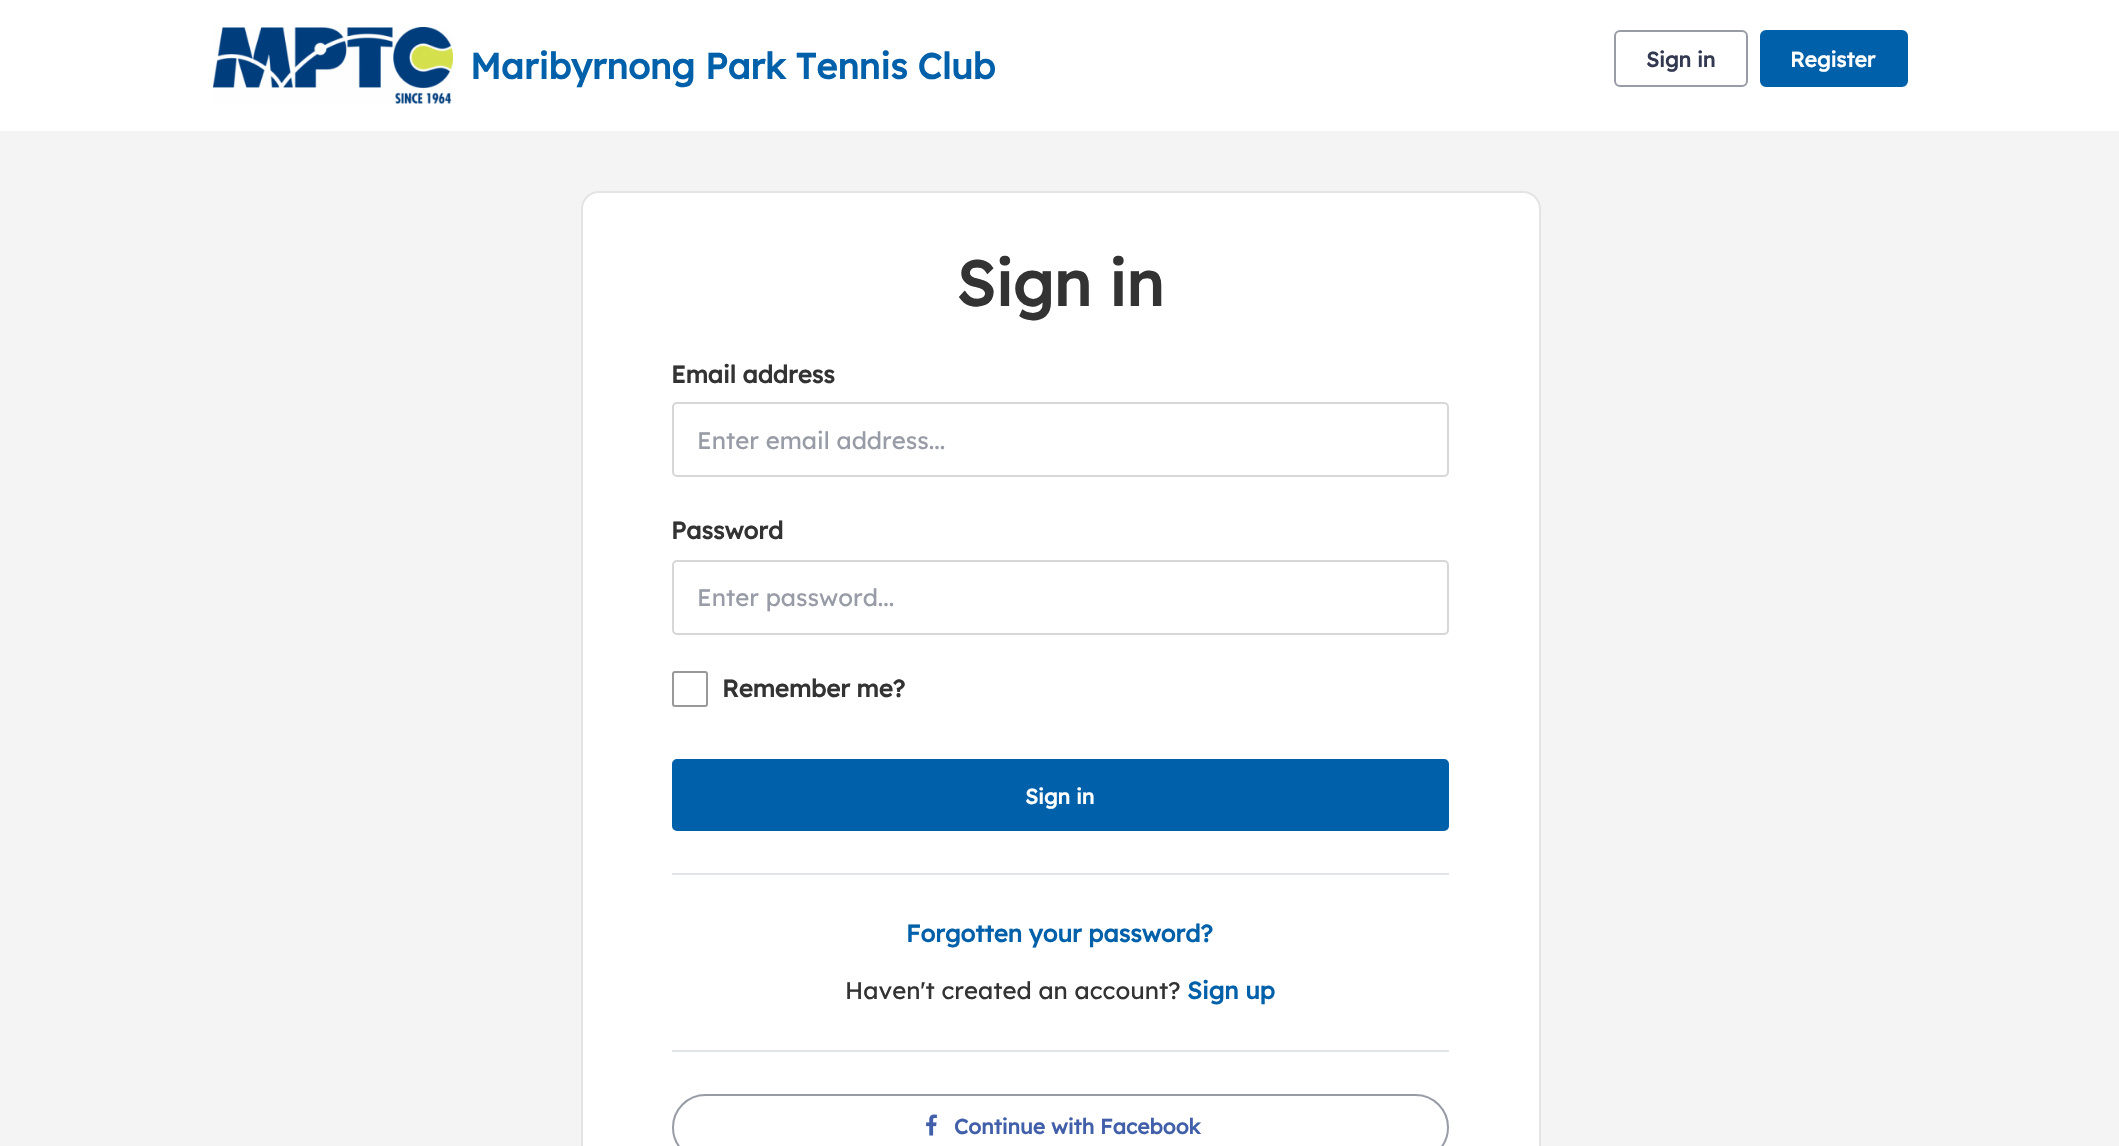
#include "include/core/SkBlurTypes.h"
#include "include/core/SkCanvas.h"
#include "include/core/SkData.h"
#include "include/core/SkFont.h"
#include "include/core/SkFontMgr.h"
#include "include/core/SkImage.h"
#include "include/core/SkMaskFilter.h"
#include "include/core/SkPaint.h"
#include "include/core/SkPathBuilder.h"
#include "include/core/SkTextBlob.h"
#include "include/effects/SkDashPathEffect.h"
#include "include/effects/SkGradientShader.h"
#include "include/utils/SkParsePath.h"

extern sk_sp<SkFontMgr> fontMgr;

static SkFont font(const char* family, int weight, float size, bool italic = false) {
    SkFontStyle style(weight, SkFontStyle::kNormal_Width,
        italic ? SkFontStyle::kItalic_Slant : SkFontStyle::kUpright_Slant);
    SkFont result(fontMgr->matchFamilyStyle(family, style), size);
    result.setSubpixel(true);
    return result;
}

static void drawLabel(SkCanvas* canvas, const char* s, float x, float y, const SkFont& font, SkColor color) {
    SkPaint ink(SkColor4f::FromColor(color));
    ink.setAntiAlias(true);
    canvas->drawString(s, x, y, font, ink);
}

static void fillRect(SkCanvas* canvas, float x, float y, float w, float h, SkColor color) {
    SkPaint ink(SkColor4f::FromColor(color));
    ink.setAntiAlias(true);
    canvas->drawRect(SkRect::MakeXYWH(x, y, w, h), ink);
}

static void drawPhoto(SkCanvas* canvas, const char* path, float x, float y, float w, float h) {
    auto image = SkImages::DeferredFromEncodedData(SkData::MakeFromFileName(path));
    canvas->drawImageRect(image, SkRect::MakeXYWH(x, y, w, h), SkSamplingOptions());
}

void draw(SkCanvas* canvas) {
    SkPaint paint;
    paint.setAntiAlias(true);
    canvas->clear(0xFFFFFFFF);
    drawPhoto(canvas, "assets/img1.png", 213, 27, 240, 77);
    SkFont font1 = font("Lexend", 700, 36);
    drawLabel(canvas, "Maribyrnong Park Tennis Club", 470, 79, font1, 0xFF0060A9);
    paint.setStroke(true);
    paint.setStrokeWidth(2);
    paint.setColor(0xFF989CA7);
    canvas->drawRoundRect(SkRect::MakeXYWH(1615, 31, 132, 55), 5, 5, paint);
    SkFont font2 = font("Lexend", 700, 21);
    drawLabel(canvas, "Sign in", 1646, 67, font2, 0xFF323950);
    paint.setStroke(false);
    paint.setColor(0xFF0060A9);
    canvas->drawRoundRect(SkRect::MakeXYWH(1761, 31, 146, 55), 5, 5, paint);
    paint.setStroke(true);
    canvas->drawRoundRect(SkRect::MakeXYWH(1761, 31, 146, 55), 5, 5, paint);
    drawLabel(canvas, "Register", 1790, 67, font2, 0xFFFFFFFF);
    fillRect(canvas, 0, 131, 2119, 1015, 0xFFF4F4F4);
    paint.setStroke(false);
    paint.setColor(0xFFFFFFFF);
    canvas->drawRoundRect(SkRect::MakeXYWH(582, 192, 958, 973), 17, 17, paint);
    paint.setStroke(true);
    paint.setColor(0xFFE4E4E4);
    canvas->drawRoundRect(SkRect::MakeXYWH(582, 192, 958, 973), 17, 17, paint);
    SkFont font3 = font("Lexend", 700, 63);
    drawLabel(canvas, "Sign in", 956, 306, font3, 0xFF333333);
    SkFont font4 = font("Lexend", 700, 24);
    drawLabel(canvas, "Email address", 671, 383, font4, 0xFF333333);
    paint.setColor(0xFFD7D7D7);
    canvas->drawRoundRect(SkRect::MakeXYWH(673, 403, 775, 73), 4, 4, paint);
    SkFont font5 = font("Lexend", 400, 24);
    drawLabel(canvas, "Enter email address...", 697, 449, font5, 0xFF989CA7);
    drawLabel(canvas, "Password", 671, 539, font4, 0xFF333333);
    canvas->drawRoundRect(SkRect::MakeXYWH(673, 561, 775, 73), 4, 4, paint);
    drawLabel(canvas, "Enter password...", 697, 606, font5, 0xFF989CA7);
    paint.setColor(0xFF999999);
    canvas->drawRoundRect(SkRect::MakeXYWH(673, 672, 34, 34), 2, 2, paint);
    drawLabel(canvas, "Remember me?", 722, 697, font4, 0xFF333333);
    paint.setStroke(false);
    paint.setColor(0xFF0060A9);
    canvas->drawRoundRect(SkRect::MakeXYWH(673, 760, 775, 70), 4, 4, paint);
    paint.setStroke(true);
    canvas->drawRoundRect(SkRect::MakeXYWH(673, 760, 775, 70), 4, 4, paint);
    drawLabel(canvas, "Sign in", 1025, 804, font2, 0xFFFFFFFF);
    fillRect(canvas, 672, 873, 777, 2, 0xFFE1E4E9);
    drawLabel(canvas, "Forgotten your password?", 906, 942, font4, 0xFF0060A9);
    drawLabel(canvas, "Haven't created an account?", 845, 999, font5, 0xFF333333);
    drawLabel(canvas, "Sign up", 1187, 999, font4, 0xFF0060A9);
    fillRect(canvas, 672, 1050, 777, 2, 0xFFE1E4E9);
    paint.setColor(0xFF989CA7);
    canvas->drawRoundRect(SkRect::MakeXYWH(673, 1095, 775, 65), 32.5f, 32.5f, paint);
    drawPhoto(canvas, "assets/img2.png", 926, 1114, 11, 22);
    drawLabel(canvas, "Continue with Facebook", 954, 1134, font2, 0xFF4260AA);
}
